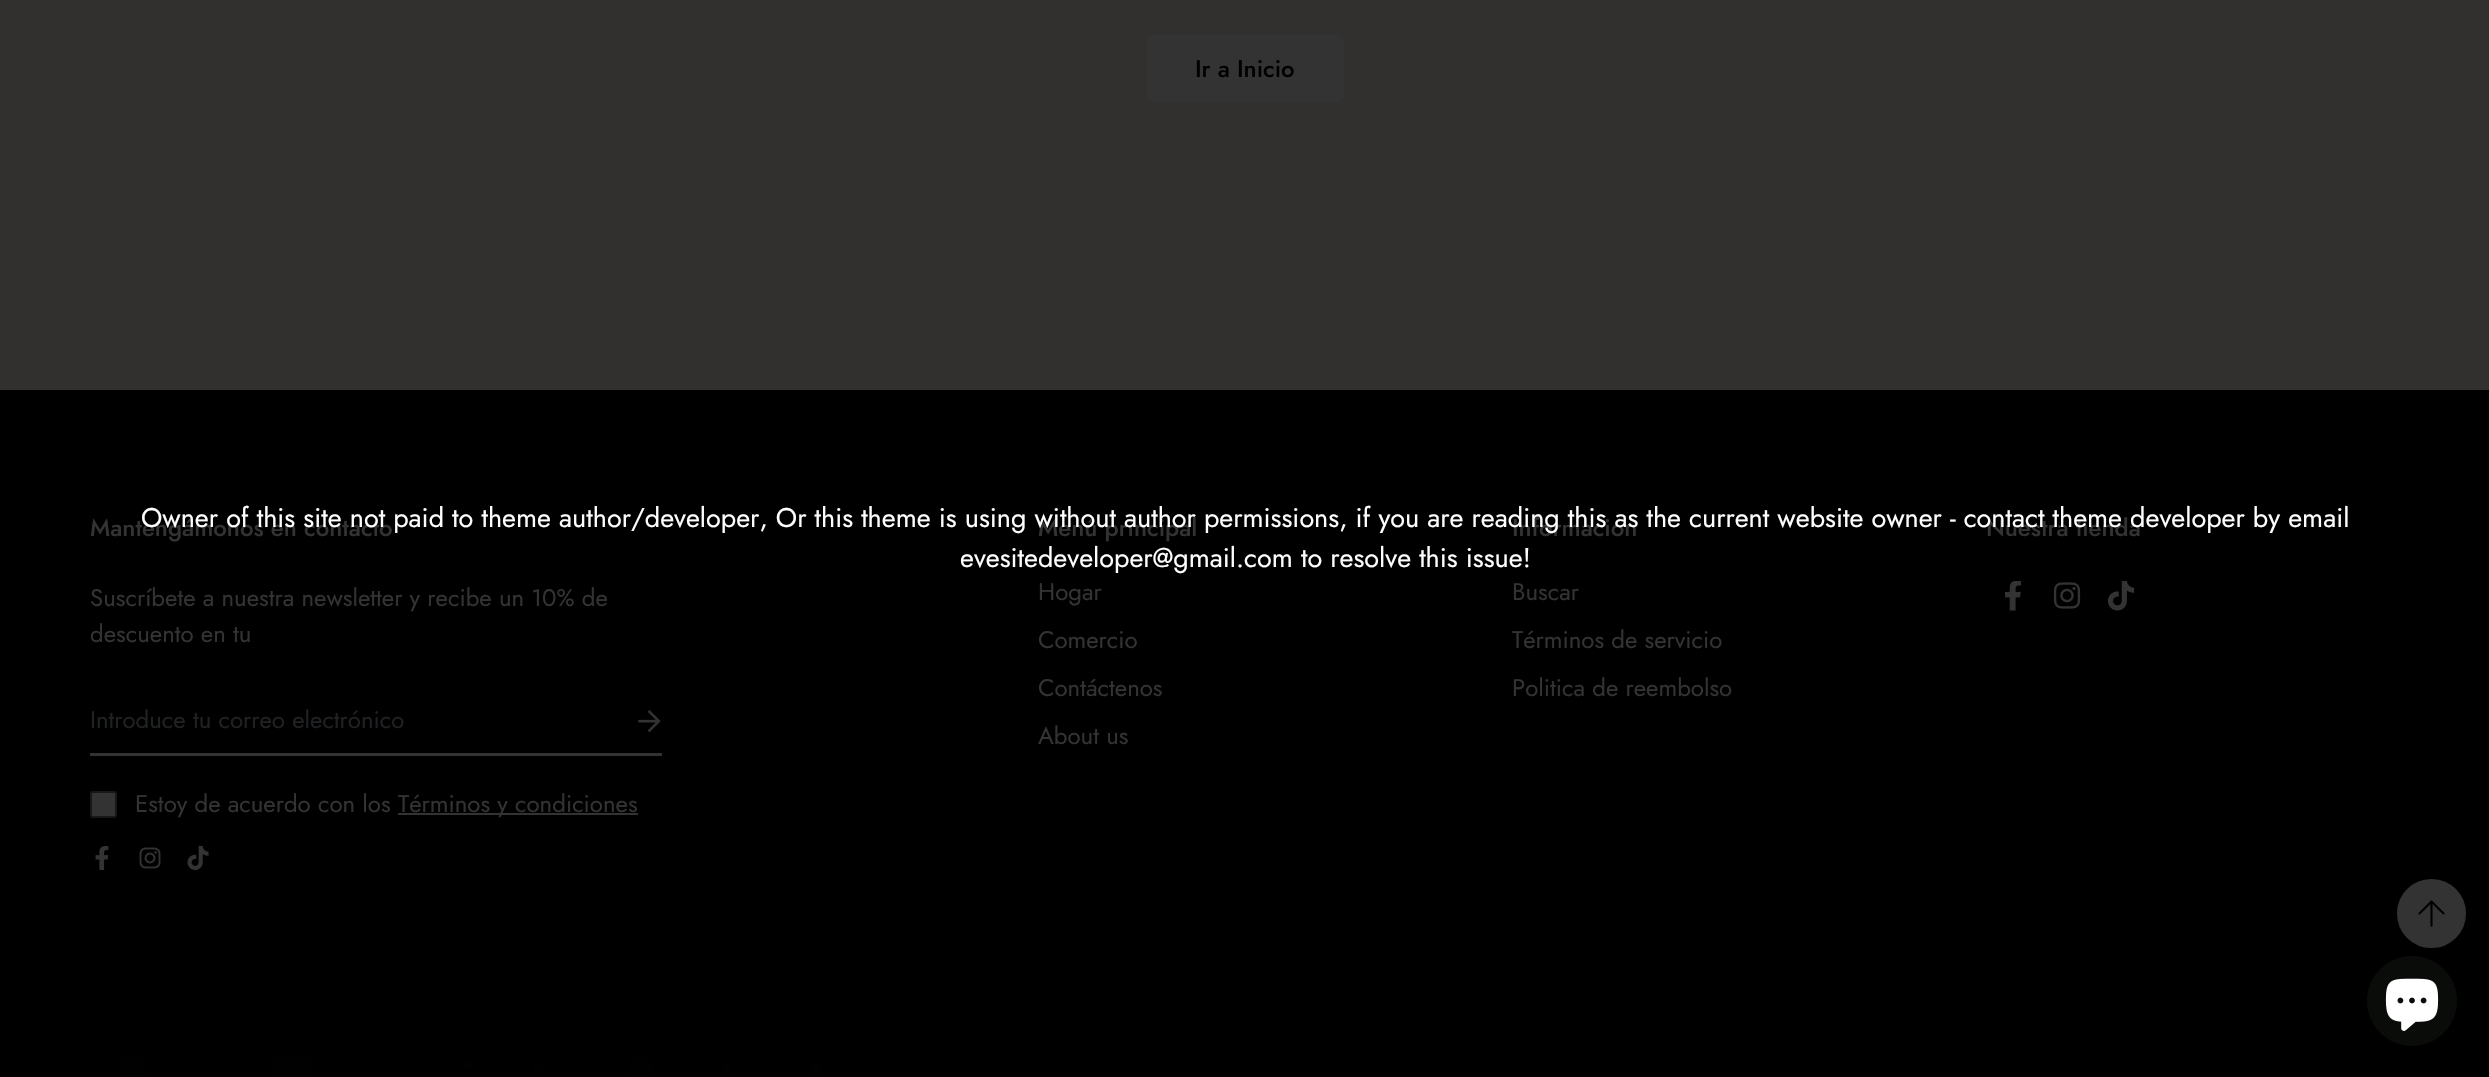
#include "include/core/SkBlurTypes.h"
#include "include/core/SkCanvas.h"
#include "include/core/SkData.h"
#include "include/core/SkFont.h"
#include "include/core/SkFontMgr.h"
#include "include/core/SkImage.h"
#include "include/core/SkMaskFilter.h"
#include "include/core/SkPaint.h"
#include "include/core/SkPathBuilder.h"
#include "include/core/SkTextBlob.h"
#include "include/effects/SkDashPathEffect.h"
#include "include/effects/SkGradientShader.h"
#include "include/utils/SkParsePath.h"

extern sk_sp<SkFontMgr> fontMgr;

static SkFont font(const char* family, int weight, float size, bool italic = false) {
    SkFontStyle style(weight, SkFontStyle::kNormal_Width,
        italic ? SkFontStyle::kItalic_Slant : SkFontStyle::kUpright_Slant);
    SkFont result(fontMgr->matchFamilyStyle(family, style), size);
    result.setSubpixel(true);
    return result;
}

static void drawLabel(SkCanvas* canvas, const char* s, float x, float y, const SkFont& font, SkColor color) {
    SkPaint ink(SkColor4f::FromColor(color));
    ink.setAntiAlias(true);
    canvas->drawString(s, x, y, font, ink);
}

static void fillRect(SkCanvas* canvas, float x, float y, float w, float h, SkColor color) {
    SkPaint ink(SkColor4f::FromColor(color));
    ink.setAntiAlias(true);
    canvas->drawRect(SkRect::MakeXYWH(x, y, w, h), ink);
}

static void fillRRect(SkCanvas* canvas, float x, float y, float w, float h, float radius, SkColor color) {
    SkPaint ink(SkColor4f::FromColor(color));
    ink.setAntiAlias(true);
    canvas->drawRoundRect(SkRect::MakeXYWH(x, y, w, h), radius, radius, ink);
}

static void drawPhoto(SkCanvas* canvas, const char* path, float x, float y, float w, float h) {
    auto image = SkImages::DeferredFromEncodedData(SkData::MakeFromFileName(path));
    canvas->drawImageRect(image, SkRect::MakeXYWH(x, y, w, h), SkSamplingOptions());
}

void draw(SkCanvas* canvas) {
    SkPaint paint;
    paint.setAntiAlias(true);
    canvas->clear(0xFF000000);
    fillRect(canvas, 0, 0, 2489, 390, 0xFF31302F);
    fillRRect(canvas, 1146, 35, 198, 67, 8, 0xFF333333);
    SkFont font1 = font("Jost", 500, 24);
    drawLabel(canvas, "Ir a Inicio", 1195, 77, font1, 0xFF000000);
    drawLabel(canvas, "Mantengámonos en contacto", 90, 536, font1, 0xFF333333);
    drawLabel(canvas, "Menú principal", 1038, 536, font1, 0xFF333333);
    drawLabel(canvas, "Información", 1512, 536, font1, 0xFF333333);
    drawLabel(canvas, "Nuestra tienda", 1986, 536, font1, 0xFF333333);
    SkFont font2 = font("Jost", 400, 27);
    drawLabel(canvas, "Owner of this site not paid to theme author/developer, Or this theme is using without author permissions, if you are reading this as the current website owner - contact theme developer by email", 141, 527, font2, 0xFFFFFFFF);
    drawLabel(canvas, "evesitedeveloper@gmail.com to resolve this issue!", 960, 567, font2, 0xFFFFFFFF);
    SkFont font3 = font("Jost", 400, 24);
    drawLabel(canvas, "Suscríbete a nuestra newsletter y recibe un 10% de", 90, 606, font3, 0xFF333333);
    drawLabel(canvas, "descuento en tu", 90, 642, font3, 0xFF333333);
    fillRect(canvas, 90, 753, 572, 3, 0xFF333333);
    drawLabel(canvas, "Introduce tu correo electrónico", 90, 728, font3, 0xFF1F2123);
    drawPhoto(canvas, "assets/img1.png", 638, 710, 23, 23);
    paint.setColor(0xFF333333);
    canvas->drawRoundRect(SkRect::MakeXYWH(91, 792, 25, 25), 2, 2, paint);
    paint.setStroke(true);
    paint.setStrokeWidth(2);
    paint.setColor(0xFF181818);
    canvas->drawRoundRect(SkRect::MakeXYWH(91, 792, 25, 25), 2, 2, paint);
    drawLabel(canvas, "Estoy de acuerdo con los", 135, 812, font3, 0xFF333333);
    fillRect(canvas, 398, 813, 240, 2, 0xFF333333);
    drawLabel(canvas, "Términos y condiciones", 398, 812, font3, 0xFF333333);
    drawPhoto(canvas, "assets/img2.png", 95, 846, 14, 24);
    drawPhoto(canvas, "assets/img3.png", 139, 847, 22, 22);
    drawPhoto(canvas, "assets/img4.png", 187, 846, 22, 24);
    drawLabel(canvas, "Hogar", 1038, 600, font3, 0xFF333333);
    drawLabel(canvas, "Comercio", 1038, 648, font3, 0xFF333333);
    drawLabel(canvas, "Contáctenos", 1038, 696, font3, 0xFF333333);
    drawLabel(canvas, "About us", 1038, 744, font3, 0xFF333333);
    drawLabel(canvas, "Buscar", 1512, 600, font3, 0xFF333333);
    drawLabel(canvas, "Términos de servicio", 1512, 648, font3, 0xFF333333);
    drawLabel(canvas, "Politica de reembolso", 1512, 696, font3, 0xFF333333);
    drawPhoto(canvas, "assets/img5.png", 2004, 581, 18, 30);
    drawPhoto(canvas, "assets/img6.png", 2053, 582, 28, 27);
    drawPhoto(canvas, "assets/img7.png", 2107, 581, 28, 30);
    drawPhoto(canvas, "assets/img8.png", 121, 1057, 24, 20);
    drawPhoto(canvas, "assets/img9.png", 273, 1058, 39, 19);
    drawPhoto(canvas, "assets/img10.png", 464, 1061, 8, 8);
    drawPhoto(canvas, "assets/img11.png", 533, 1063, 11, 9);
    drawPhoto(canvas, "assets/img12.png", 629, 1058, 24, 19);
    drawPhoto(canvas, "assets/img13.png", 723, 1059, 9, 18);
    drawPhoto(canvas, "assets/img14.png", 811, 1061, 11, 13);
    paint.setStroke(false);
    paint.setColor(0xFF333333);
    canvas->drawCircle(2431.5f, 913.5f, 33.5f, paint);
    paint.setStroke(true);
    canvas->drawCircle(2431.5f, 913.5f, 33.5f, paint);
    drawPhoto(canvas, "assets/img15.png", 2418, 900, 27, 27);
    paint.setStroke(false);
    paint.setColor(0xFF090C08);
    canvas->drawCircle(2412, 1001, 45, paint);
    drawPhoto(canvas, "assets/img16.png", 2385, 978, 54, 53);
}
